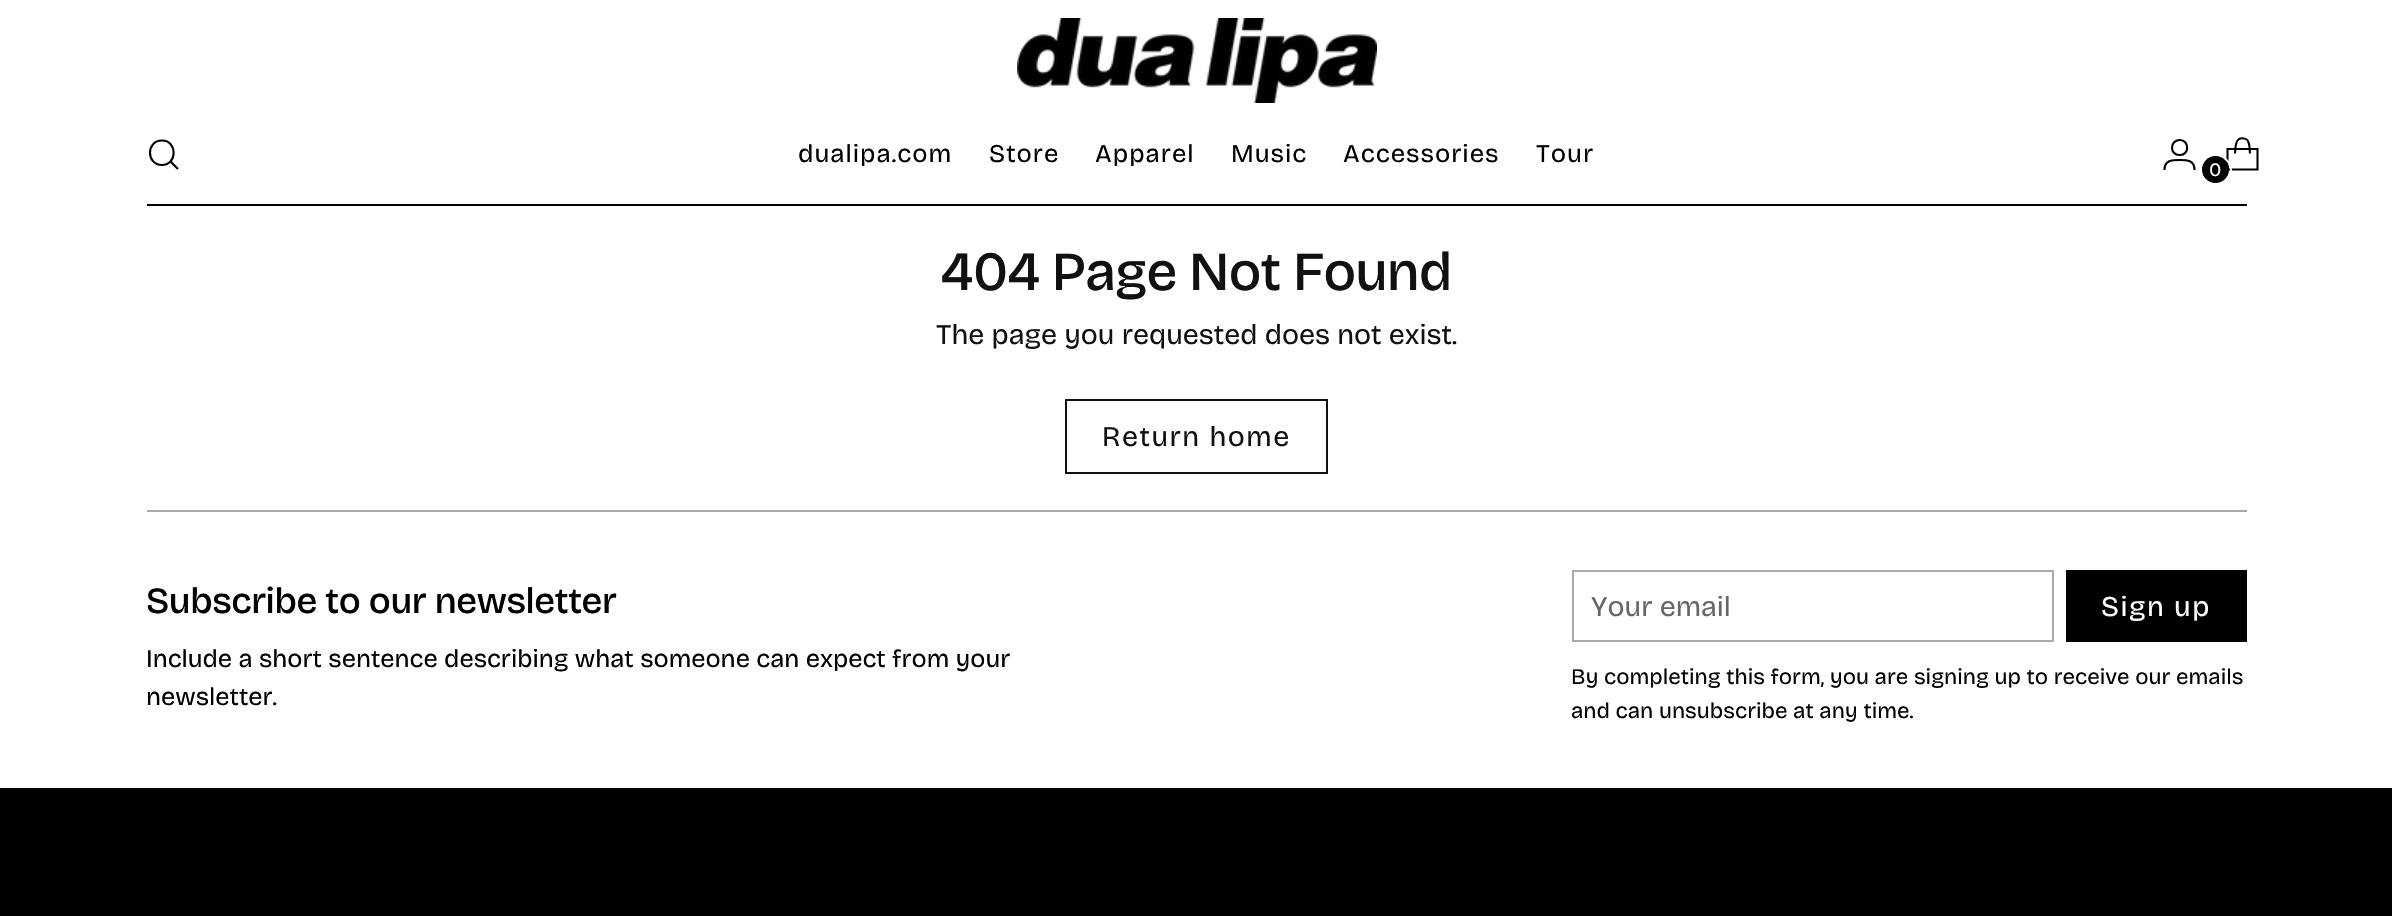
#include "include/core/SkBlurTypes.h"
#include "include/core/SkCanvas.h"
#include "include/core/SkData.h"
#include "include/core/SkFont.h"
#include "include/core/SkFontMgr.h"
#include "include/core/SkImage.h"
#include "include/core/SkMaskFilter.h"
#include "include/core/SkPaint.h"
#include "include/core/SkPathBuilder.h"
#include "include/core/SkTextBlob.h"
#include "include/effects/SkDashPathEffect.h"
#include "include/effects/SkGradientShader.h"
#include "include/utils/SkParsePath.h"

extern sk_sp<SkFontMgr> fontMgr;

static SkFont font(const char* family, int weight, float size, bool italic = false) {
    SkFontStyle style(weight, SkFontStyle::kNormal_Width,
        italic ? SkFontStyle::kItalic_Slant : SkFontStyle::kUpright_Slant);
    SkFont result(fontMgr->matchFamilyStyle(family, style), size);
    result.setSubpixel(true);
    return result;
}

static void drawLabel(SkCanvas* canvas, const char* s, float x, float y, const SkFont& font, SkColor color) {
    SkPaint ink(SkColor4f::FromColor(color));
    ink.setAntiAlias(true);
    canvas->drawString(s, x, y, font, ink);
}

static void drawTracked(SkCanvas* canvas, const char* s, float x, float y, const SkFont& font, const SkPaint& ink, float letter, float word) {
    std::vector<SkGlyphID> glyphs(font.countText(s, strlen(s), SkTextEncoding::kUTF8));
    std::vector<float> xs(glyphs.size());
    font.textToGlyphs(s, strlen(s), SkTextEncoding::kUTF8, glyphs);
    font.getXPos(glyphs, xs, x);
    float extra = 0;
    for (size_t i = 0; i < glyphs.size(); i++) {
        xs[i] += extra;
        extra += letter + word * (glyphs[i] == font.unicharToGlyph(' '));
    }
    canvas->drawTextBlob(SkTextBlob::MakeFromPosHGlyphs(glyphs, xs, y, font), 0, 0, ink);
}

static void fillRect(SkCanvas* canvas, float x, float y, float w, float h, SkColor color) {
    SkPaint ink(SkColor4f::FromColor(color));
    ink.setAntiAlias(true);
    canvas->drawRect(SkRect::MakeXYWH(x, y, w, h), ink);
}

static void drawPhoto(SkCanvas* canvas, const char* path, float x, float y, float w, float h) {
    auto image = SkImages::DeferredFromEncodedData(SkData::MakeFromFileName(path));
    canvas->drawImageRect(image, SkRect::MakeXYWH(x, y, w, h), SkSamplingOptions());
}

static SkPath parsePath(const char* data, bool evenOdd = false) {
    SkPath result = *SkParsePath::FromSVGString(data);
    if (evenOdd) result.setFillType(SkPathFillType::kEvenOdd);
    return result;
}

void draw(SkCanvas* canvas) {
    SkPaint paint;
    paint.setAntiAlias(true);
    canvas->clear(0xFFFFFFFF);
    fillRect(canvas, 147, 204, 2100, 2, 0xFF000000);
    drawPhoto(canvas, "assets/img1.png", 1017, 18, 360, 85);
    paint.setStroke(true);
    paint.setStrokeWidth(2.1f);
    paint.setStrokeCap(SkPaint::kRound_Cap);
    paint.setColor(0xFF000000);
    canvas->drawPath(parsePath("M162 165C177.5 165 177.5 140.5 162 140.5C146 140.5 146 165 162 165Z"), paint);
    paint.setStrokeCap(SkPaint::kButt_Cap);
    canvas->drawPath(parsePath("M170.5 161.5L178 169"), paint);
    SkFont font1 = font("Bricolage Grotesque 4", 400, 25.5f);
    paint.setStroke(false);
    drawTracked(canvas, "dualipa.com", 798, 162, font1, paint, 1, 0);
    drawTracked(canvas, "Store", 989, 162, font1, paint, 1, 0);
    drawTracked(canvas, "Apparel", 1095, 162, font1, paint, 1, 0);
    drawTracked(canvas, "Music", 1231, 162, font1, paint, 1, 0);
    drawTracked(canvas, "Accessories", 1343, 162, font1, paint, 1, 0);
    drawTracked(canvas, "Tour", 1536, 162, font1, paint, 1, 0);
    paint.setStroke(true);
    canvas->drawPath(parsePath("M2179.5 155C2190 155.5 2189.5 139.5 2179.5 140C2169.5 140.5 2169.5 155 2179.5 155ZM2164.5 170C2164.5 160 2172 160 2179.5 160C2187 160 2194.5 160 2194.5 170"), paint);
    paint.setStrokeJoin(SkPaint::kBevel_Join);
    canvas->drawPath(parsePath("M2250 153.5C2249.5 150 2250 146 2248.5 142.5C2248 140.5 2246 138.5 2244 138.5C2235 136.5 2235.5 148 2235 153.5"), paint);
    paint.setStrokeJoin(SkPaint::kMiter_Join);
    canvas->drawPath(parsePath("M2257.5 169.5V149H2227.5V169.5Z"), paint);
    paint.setStrokeWidth(2);
    paint.setColor(0xFFFFFFFF);
    canvas->drawCircle(2216.5f, 170.5f, 14.5f, paint);
    paint.setStroke(false);
    paint.setColor(0xFF000000);
    canvas->drawCircle(2215.5f, 169.5f, 13.5f, paint);
    SkFont font2 = font("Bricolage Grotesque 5", 400, 19);
    drawLabel(canvas, "0", 2209, 176, font2, 0xFFFFFFFF);
    SkFont font3 = font("Bricolage Grotesque", 500, 55.1f);
    paint.setColor(0xFF111111);
    drawTracked(canvas, "404 Page Not Found", 941, 290, font3, paint, -0.5f, 0);
    SkFont font4 = font("Bricolage Grotesque", 400, 28.5f);
    drawLabel(canvas, "The page you requested does not exist.", 936, 344, font4, 0xFF111111);
    paint.setStroke(true);
    canvas->drawRect(SkRect::MakeXYWH(1066, 400, 261, 73), paint);
    paint.setStroke(false);
    drawTracked(canvas, "Return home", 1102, 446, font4, paint, 1.5f, 0);
    fillRect(canvas, 147, 510, 2100, 2, 0xFFAAAAAA);
    SkFont font5 = font("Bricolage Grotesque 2", 500, 36.75f);
    paint.setColor(0xFF000000);
    drawTracked(canvas, "Subscribe to our newsletter", 146, 613, font5, paint, -0.4f, 0);
    SkFont font6 = font("Bricolage Grotesque 2", 400, 25.3f);
    drawLabel(canvas, "Include a short sentence describing what someone can expect from your", 146, 667, font6, 0xFF000000);
    drawLabel(canvas, "newsletter.", 146, 705, font6, 0xFF000000);
    paint.setStroke(true);
    paint.setColor(0xFFAAAAAA);
    canvas->drawRect(SkRect::MakeXYWH(1573, 571, 480, 70), paint);
    drawLabel(canvas, "Your email", 1591, 616, font4, 0xFF666666);
    canvas->save();
    canvas->clipRect(SkRect::MakeXYWH(2066, 570, 181, 72));
    paint.setStroke(false);
    paint.setColor(0xFF000000);
    canvas->drawPath(parsePath("M2018 570H2252L2294 642H2060Z"), paint);
    canvas->restore();
    paint.setColor(0xFFFFFFFF);
    drawTracked(canvas, "Sign up", 2101, 616, font4, paint, 1.5f, 0);
    SkFont font7 = font("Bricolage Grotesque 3", 400, 22.15f);
    drawLabel(canvas, "By completing this form, you are signing up to receive our emails", 1571, 684, font7, 0xFF000000);
    drawLabel(canvas, "and can unsubscribe at any time.", 1571, 718, font7, 0xFF000000);
    fillRect(canvas, 0, 788, 2392, 128, 0xFF000000);
}
